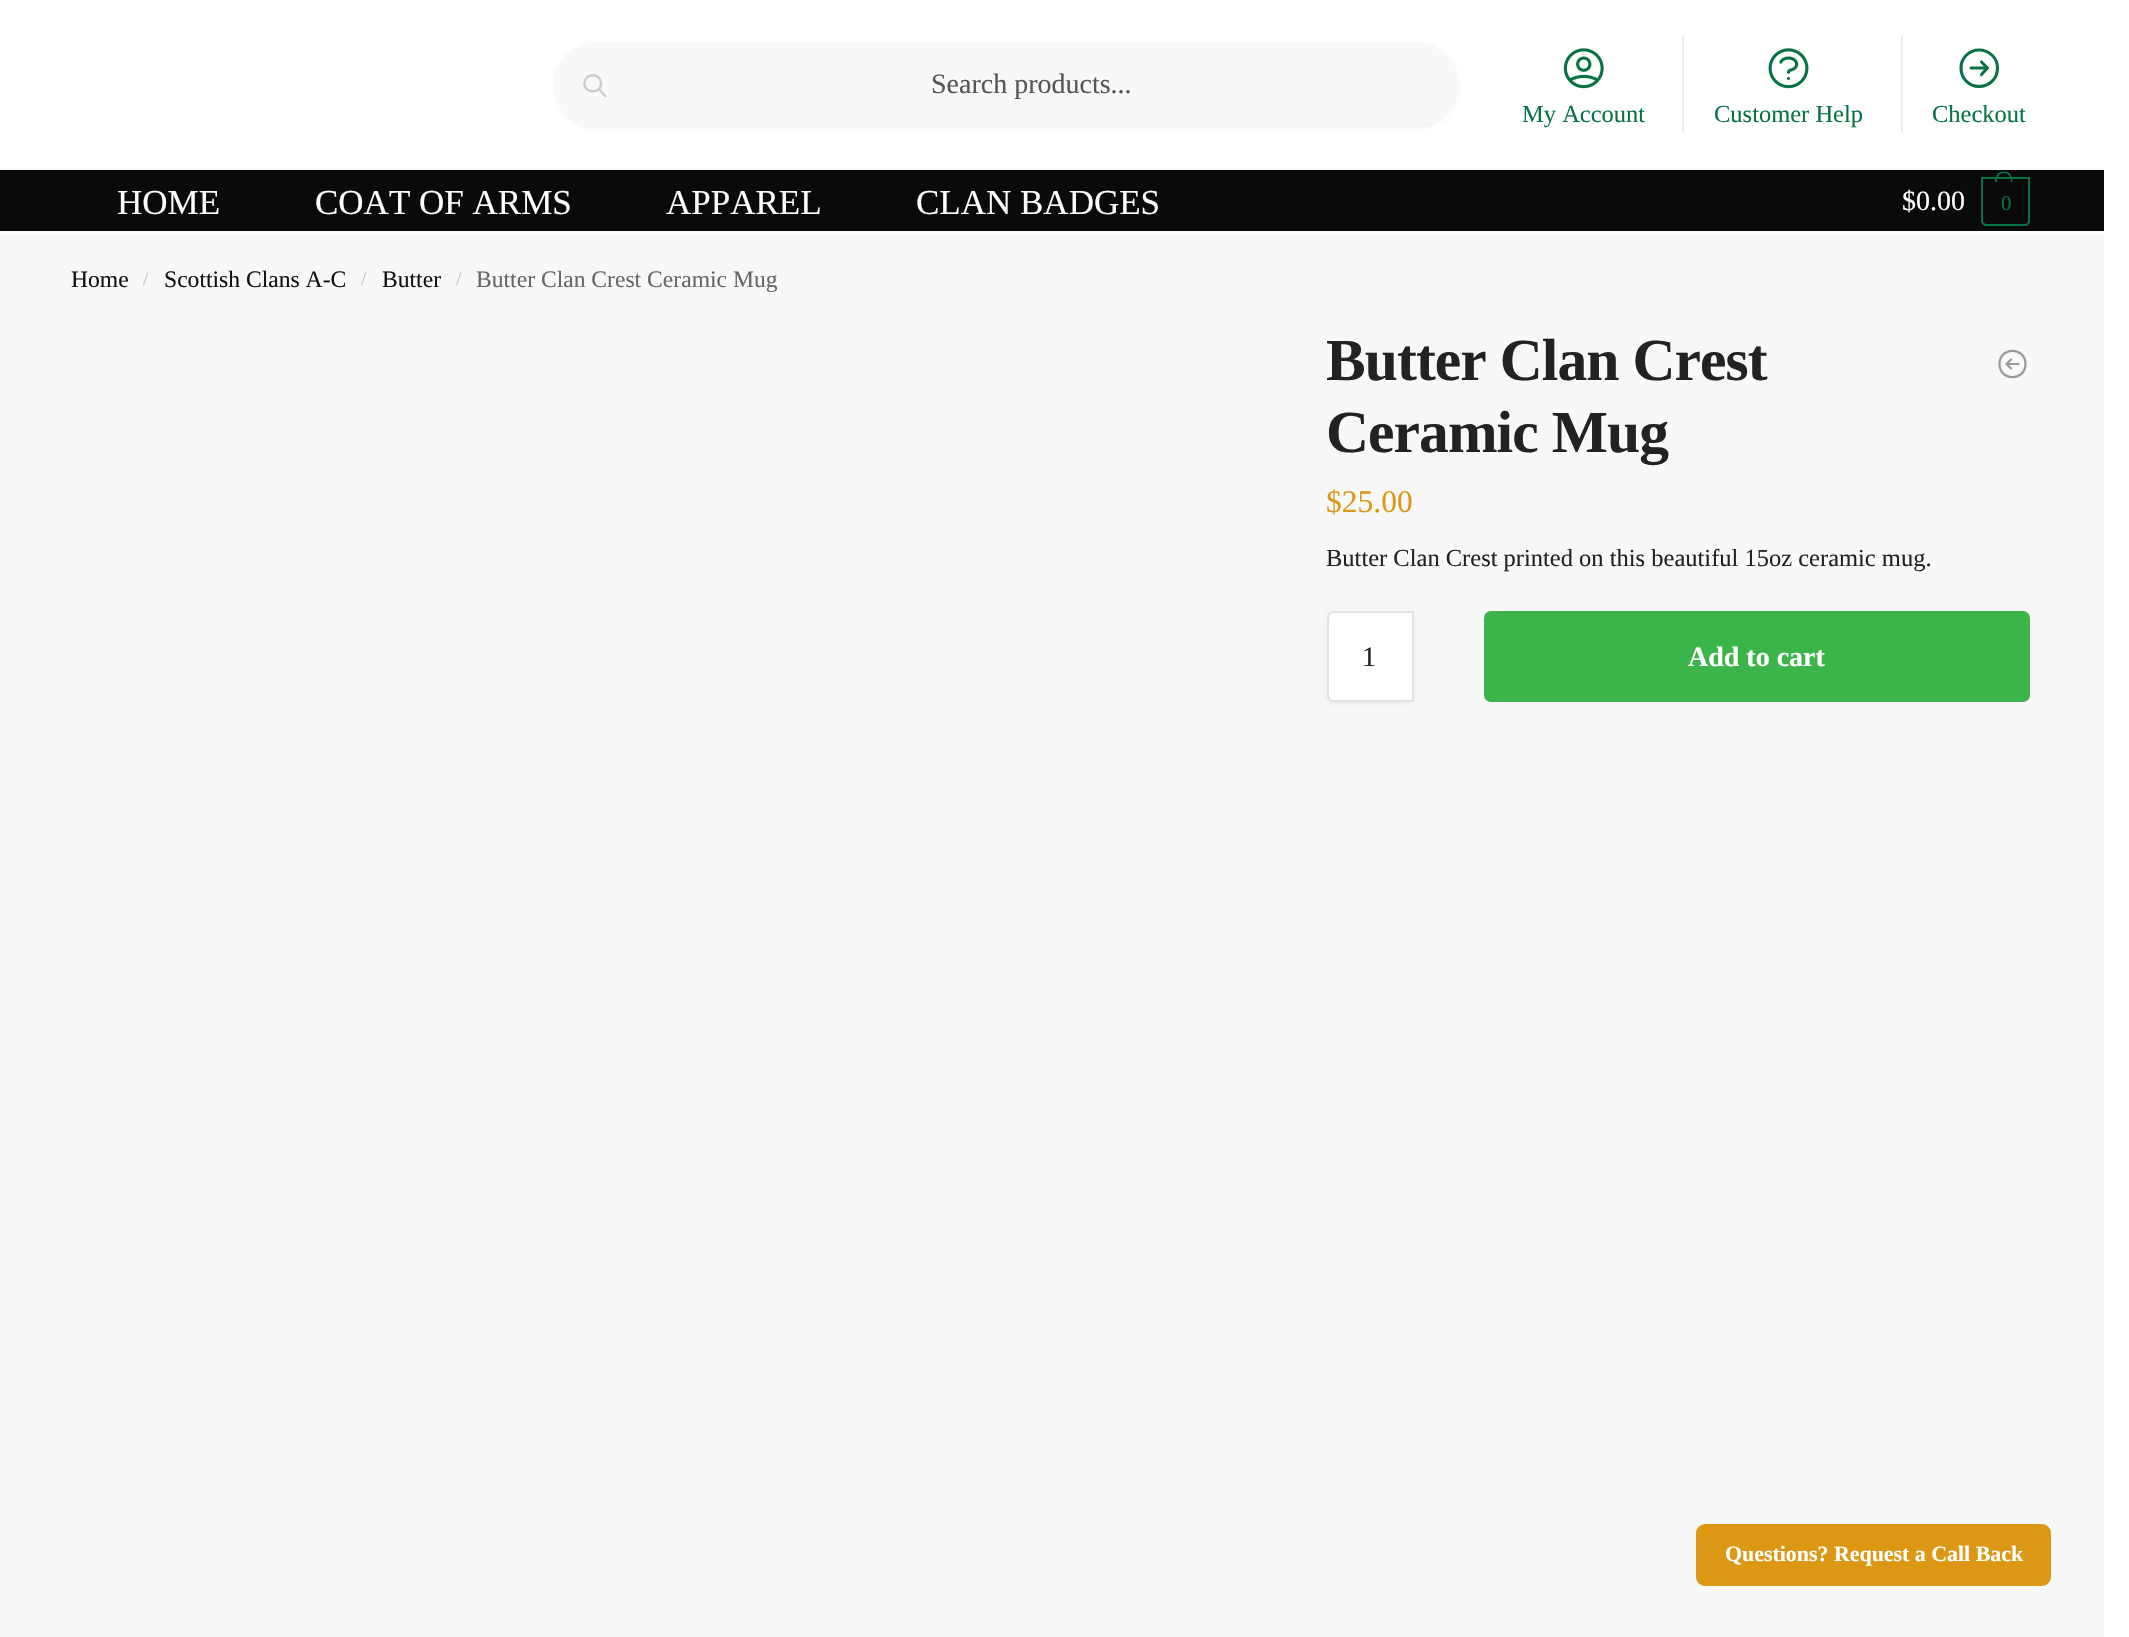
#include "include/core/SkBlurTypes.h"
#include "include/core/SkCanvas.h"
#include "include/core/SkData.h"
#include "include/core/SkFont.h"
#include "include/core/SkFontMgr.h"
#include "include/core/SkImage.h"
#include "include/core/SkMaskFilter.h"
#include "include/core/SkPaint.h"
#include "include/core/SkPathBuilder.h"
#include "include/core/SkTextBlob.h"
#include "include/effects/SkDashPathEffect.h"
#include "include/effects/SkGradientShader.h"
#include "include/utils/SkParsePath.h"

extern sk_sp<SkFontMgr> fontMgr;

static SkFont font(const char* family, int weight, float size, bool italic = false) {
    SkFontStyle style(weight, SkFontStyle::kNormal_Width,
        italic ? SkFontStyle::kItalic_Slant : SkFontStyle::kUpright_Slant);
    SkFont result(fontMgr->matchFamilyStyle(family, style), size);
    result.setSubpixel(true);
    return result;
}

static void drawLabel(SkCanvas* canvas, const char* s, float x, float y, const SkFont& font, SkColor color) {
    SkPaint ink(SkColor4f::FromColor(color));
    ink.setAntiAlias(true);
    canvas->drawString(s, x, y, font, ink);
}

static void drawTracked(SkCanvas* canvas, const char* s, float x, float y, const SkFont& font, const SkPaint& ink, float letter, float word) {
    std::vector<SkGlyphID> glyphs(font.countText(s, strlen(s), SkTextEncoding::kUTF8));
    std::vector<float> xs(glyphs.size());
    font.textToGlyphs(s, strlen(s), SkTextEncoding::kUTF8, glyphs);
    font.getXPos(glyphs, xs, x);
    float extra = 0;
    for (size_t i = 0; i < glyphs.size(); i++) {
        xs[i] += extra;
        extra += letter + word * (glyphs[i] == font.unicharToGlyph(' '));
    }
    canvas->drawTextBlob(SkTextBlob::MakeFromPosHGlyphs(glyphs, xs, y, font), 0, 0, ink);
}

static void fillRect(SkCanvas* canvas, float x, float y, float w, float h, SkColor color) {
    SkPaint ink(SkColor4f::FromColor(color));
    ink.setAntiAlias(true);
    canvas->drawRect(SkRect::MakeXYWH(x, y, w, h), ink);
}

static void fillRRect(SkCanvas* canvas, float x, float y, float w, float h, float radius, SkColor color) {
    SkPaint ink(SkColor4f::FromColor(color));
    ink.setAntiAlias(true);
    canvas->drawRoundRect(SkRect::MakeXYWH(x, y, w, h), radius, radius, ink);
}

static void drawPhoto(SkCanvas* canvas, const char* path, float x, float y, float w, float h) {
    auto image = SkImages::DeferredFromEncodedData(SkData::MakeFromFileName(path));
    canvas->drawImageRect(image, SkRect::MakeXYWH(x, y, w, h), SkSamplingOptions());
}

static SkPath parsePath(const char* data, bool evenOdd = false) {
    SkPath result = *SkParsePath::FromSVGString(data);
    if (evenOdd) result.setFillType(SkPathFillType::kEvenOdd);
    return result;
}

void draw(SkCanvas* canvas) {
    SkPaint paint;
    paint.setAntiAlias(true);
    canvas->clear(0xFFFFFFFF);
    paint.setColor(0x0D000000);
    paint.setMaskFilter(SkMaskFilter::MakeBlur(kNormal_SkBlurStyle, 2));
    canvas->drawRoundRect(SkRect::MakeXYWH(555, 44, 903, 84), 42, 42, paint);
    paint.setMaskFilter(nullptr);
    fillRRect(canvas, 555, 42, 903, 84, 42, 0xFFF8F8F8);
    paint.setStroke(true);
    paint.setStrokeWidth(2.3f);
    paint.setStrokeCap(SkPaint::kRound_Cap);
    paint.setStrokeJoin(SkPaint::kRound_Join);
    paint.setColor(0xFFCCCCCC);
    canvas->drawPath(parsePath("M605.5 96L598.5 89M601 83.5C601 94 584.5 94 584.5 83.5C584.5 72.5 601 72.5 601 83.5Z"), paint);
    SkFont font1 = font("Liberation Serif", 400, 28);
    drawLabel(canvas, "Search products...", 931, 93, font1, 0xFF555555);
    drawPhoto(canvas, "assets/img1.png", 1563, 48, 41, 41);
    SkFont font2 = font("Liberation Serif", 400, 24.5f);
    drawLabel(canvas, "My Account", 1522, 122, font2, 0xFF077344);
    fillRect(canvas, 1682, 35, 2, 98, 0xFFEEEEEE);
    drawPhoto(canvas, "assets/img2.png", 1768, 48, 41, 41);
    drawLabel(canvas, "Customer Help", 1714, 122, font2, 0xFF077344);
    fillRect(canvas, 1901, 35, 2, 98, 0xFFEEEEEE);
    paint.setStrokeWidth(3.1f);
    paint.setColor(0xFF077344);
    canvas->drawPath(parsePath("M1981.5 62L1987.5 68M1987.5 68L1981.5 74.5M1987.5 68H1971M1997.5 68C1997.5 78.5 1989.5 86.5 1979 86.5C1969 86.5 1961 78.5 1961 68C1961 58 1969 50 1979 50C1989.5 50 1997.5 58 1997.5 68Z"), paint);
    drawLabel(canvas, "Checkout", 1932, 122, font2, 0xFF077344);
    fillRect(canvas, 0, 170, 2104, 61, 0xFF0A0A0A);
    SkFont font3 = font("Liberation Serif", 400, 35);
    drawLabel(canvas, "HOME", 117, 214, font3, 0xFFFFFFFF);
    drawLabel(canvas, "COAT OF ARMS", 315, 214, font3, 0xFFFFFFFF);
    drawLabel(canvas, "APPAREL", 666, 214, font3, 0xFFFFFFFF);
    drawLabel(canvas, "CLAN BADGES", 916, 214, font3, 0xFFFFFFFF);
    drawLabel(canvas, "$0.00", 1902, 210, font1, 0xFFFFFFFF);
    paint.setStrokeWidth(2);
    paint.setStrokeCap(SkPaint::kButt_Cap);
    paint.setStrokeJoin(SkPaint::kMiter_Join);
    canvas->drawPath(parsePath("M1982 178H2029V221C2029 223 2027 225 2025 225H1986C1984 225 1982 223 1982 221Z"), paint);
    paint.setStroke(false);
    canvas->drawPath(parsePath("M2004 171.5C2010 171.5 2012.5 176.5 2012.5 182H1995C1995 176.5 1997.5 171.5 2004 171.5ZM2004 173C2009 173 2011 177.5 2011 182H1997C1997 177.5 1998.5 173 2004 173Z", true), paint);
    SkFont font4 = font("Liberation Serif", 400, 21);
    drawTracked(canvas, "0", 2001, 210, font4, paint, -1, 0);
    fillRect(canvas, 0, 235, 2104, 1402, 0xFFF8F8F8);
    SkFont font5 = font("Liberation Serif", 400, 23.6f);
    drawLabel(canvas, "Home", 71, 287, font5, 0xFF111111);
    SkFont font6 = font("Liberation Serif", 400, 19);
    drawLabel(canvas, "/", 143, 285, font6, 0xFFBEBEBE);
    drawLabel(canvas, "Scottish Clans A-C", 164, 287, font5, 0xFF111111);
    drawLabel(canvas, "/", 361, 285, font6, 0xFFBEBEBE);
    drawLabel(canvas, "Butter", 382, 287, font5, 0xFF111111);
    drawLabel(canvas, "/", 456, 285, font6, 0xFFBEBEBE);
    drawLabel(canvas, "Butter Clan Crest Ceramic Mug", 476, 287, font5, 0xFF666666);
    SkFont font7 = font("Liberation Serif", 700, 59.5f);
    paint.setColor(0xFF222222);
    drawTracked(canvas, "Butter Clan Crest", 1326, 380, font7, paint, -0.9f, 0);
    drawTracked(canvas, "Ceramic Mug", 1326, 452, font7, paint, -0.9f, 0);
    paint.setStroke(true);
    paint.setStrokeWidth(2.2f);
    paint.setStrokeCap(SkPaint::kRound_Cap);
    paint.setStrokeJoin(SkPaint::kRound_Join);
    paint.setColor(0xFF999999);
    canvas->drawPath(parsePath("M2011 368.5L2006.5 364M2006.5 364L2011 359.5M2006.5 364H2018.5M1999.5 364C1999.5 346.5 2025.5 346.5 2025.5 364C2025.5 381.5 1999.5 381.5 1999.5 364Z"), paint);
    SkFont font8 = font("Liberation Serif", 400, 31.5f);
    drawLabel(canvas, "$25.00", 1326, 512, font8, 0xFFDC9814);
    drawLabel(canvas, "Butter Clan Crest printed on this beautiful 15oz ceramic mug.", 1326, 566, font2, 0xFF222222);
    paint.setStroke(false);
    paint.setColor(0x0D000000);
    paint.setMaskFilter(SkMaskFilter::MakeBlur(kNormal_SkBlurStyle, 2));
    canvas->drawRoundRect(SkRect::MakeXYWH(1327, 613, 87, 91), 7, 7, paint);
    paint.setMaskFilter(nullptr);
    paint.setColor(0xFFFFFFFF);
    canvas->drawPath(parsePath("M1334 612H1413V701H1334C1330.5 701 1328 698.5 1328 695V618C1328 614.5 1330.5 612 1334 612Z"), paint);
    paint.setStroke(true);
    paint.setStrokeWidth(2);
    paint.setStrokeCap(SkPaint::kButt_Cap);
    paint.setStrokeJoin(SkPaint::kMiter_Join);
    paint.setColor(0xFFE2E2E2);
    canvas->drawPath(parsePath("M1334 612H1413V701H1334C1330.5 701 1328 698.5 1328 695V618C1328 614.5 1330.5 612 1334 612Z"), paint);
    drawLabel(canvas, "1", 1362, 666, font1, 0xFF222222);
    fillRRect(canvas, 1484, 611, 546, 91, 7, 0xFF3BB54A);
    SkFont font9 = font("Liberation Serif", 700, 28);
    drawLabel(canvas, "Add to cart", 1688, 666, font9, 0xFFFFFFFF);
    paint.setStrokeWidth(1.8f);
    paint.setColor(0xFF3BB54A);
    canvas->drawPath(parsePath("M1746.5 645.5C1750 642 1755 640.5 1760 641.5C1777.5 645 1774.5 671 1757 671C1753 671 1749.5 669.5 1746.5 667"), paint);
    fillRRect(canvas, 1696, 1524, 355, 62, 9, 0xFFDC9814);
    SkFont font10 = font("Liberation Serif", 700, 21.9f);
    drawLabel(canvas, "Questions? Request a Call Back", 1725, 1561, font10, 0xFFFFFFFF);
}
